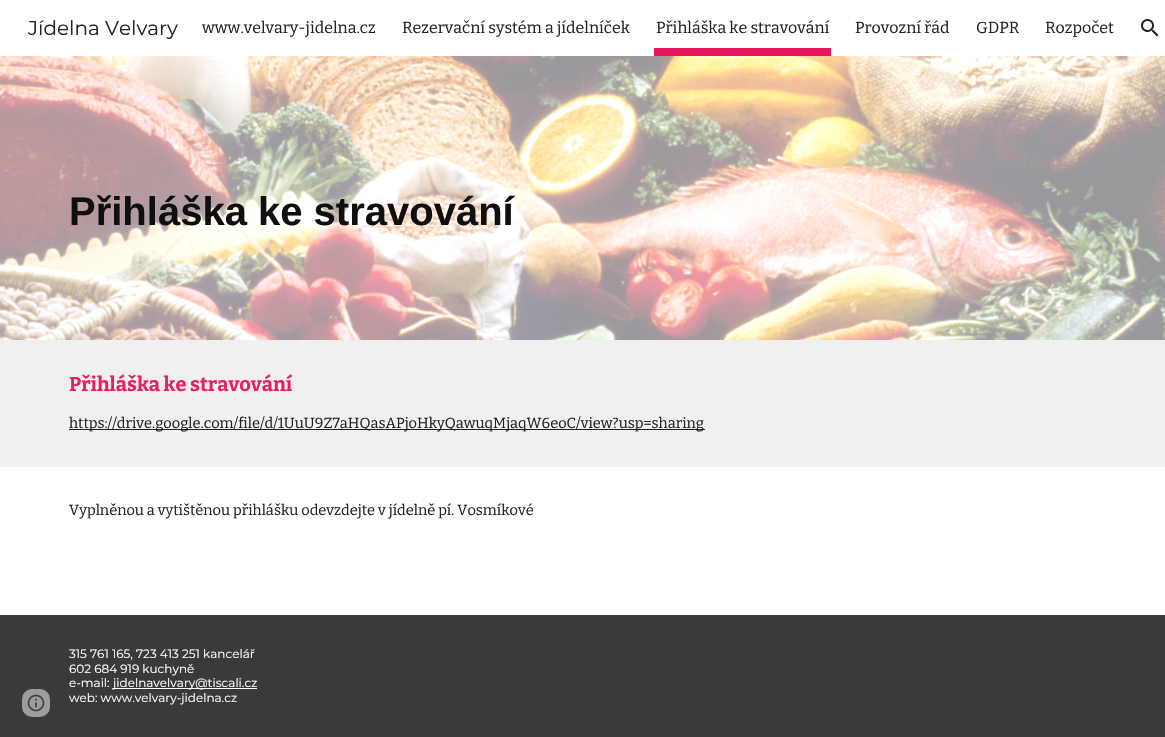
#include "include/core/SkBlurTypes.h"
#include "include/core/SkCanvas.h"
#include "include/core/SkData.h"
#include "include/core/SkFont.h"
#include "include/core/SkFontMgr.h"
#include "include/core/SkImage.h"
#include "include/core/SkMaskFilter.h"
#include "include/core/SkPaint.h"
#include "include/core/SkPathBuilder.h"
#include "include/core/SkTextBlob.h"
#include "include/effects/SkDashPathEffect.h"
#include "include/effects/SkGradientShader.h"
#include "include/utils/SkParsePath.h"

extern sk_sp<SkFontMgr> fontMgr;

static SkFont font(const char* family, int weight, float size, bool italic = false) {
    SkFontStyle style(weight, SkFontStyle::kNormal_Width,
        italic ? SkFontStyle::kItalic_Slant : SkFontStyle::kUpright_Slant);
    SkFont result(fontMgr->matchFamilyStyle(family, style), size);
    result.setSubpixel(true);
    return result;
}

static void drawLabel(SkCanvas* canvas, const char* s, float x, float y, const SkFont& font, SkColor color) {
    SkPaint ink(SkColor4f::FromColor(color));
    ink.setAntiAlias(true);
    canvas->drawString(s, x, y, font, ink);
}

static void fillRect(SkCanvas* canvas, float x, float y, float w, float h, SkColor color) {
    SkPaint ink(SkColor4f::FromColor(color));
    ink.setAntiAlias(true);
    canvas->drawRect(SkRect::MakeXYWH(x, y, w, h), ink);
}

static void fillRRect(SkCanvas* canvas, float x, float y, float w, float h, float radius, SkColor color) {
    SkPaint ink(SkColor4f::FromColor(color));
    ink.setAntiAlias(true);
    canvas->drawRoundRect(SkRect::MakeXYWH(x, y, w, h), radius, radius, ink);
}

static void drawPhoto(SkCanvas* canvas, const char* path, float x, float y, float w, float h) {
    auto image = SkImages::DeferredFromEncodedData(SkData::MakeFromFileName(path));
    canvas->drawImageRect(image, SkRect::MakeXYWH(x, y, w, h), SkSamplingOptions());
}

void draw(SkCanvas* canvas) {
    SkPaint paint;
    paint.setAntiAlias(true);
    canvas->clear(0xFFFFFFFF);
    SkFont font1 = font("Montserrat", 400, 20);
    drawLabel(canvas, "Jídelna Velvary", 28, 35, font1, 0xFF212121);
    SkFont font2 = font("Bitter", 400, 16);
    drawLabel(canvas, "www.velvary-jidelna.cz", 202, 33, font2, 0xFF212121);
    drawLabel(canvas, "Rezervační systém a jídelníček", 402, 33, font2, 0xFF212121);
    fillRect(canvas, 654, 48, 177, 8, 0xFFE6155E);
    drawLabel(canvas, "Přihláška ke stravování", 656, 33, font2, 0xFF212121);
    drawLabel(canvas, "Provozní řád", 855, 33, font2, 0xFF212121);
    drawLabel(canvas, "GDPR", 976, 33, font2, 0xFF212121);
    drawLabel(canvas, "Rozpočet", 1045, 33, font2, 0xFF212121);
    drawPhoto(canvas, "assets/img1.png", 1141, 19, 18, 18);
    drawPhoto(canvas, "assets/img2.png", 0, 56, 1165, 284);
    SkFont font3 = font("Liberation Sans", 700, 40);
    drawLabel(canvas, "Přihláška ke stravování", 69, 225, font3, 0xFF0F0F0F);
    fillRect(canvas, 0, 340, 1165, 127, 0xFFF0F0F0);
    SkFont font4 = font("Bitter", 700, 20);
    drawLabel(canvas, "Přihláška ke stravování", 69, 391, font4, 0xFFE91E63);
    fillRect(canvas, 69, 429, 636, 1, 0xFF212121);
    SkFont font5 = font("Bitter", 400, 14.65f);
    drawLabel(canvas, "https://drive.google.com/file/d/1UuU9Z7aHQasAPjoHkyQawuqMjaqW6eoC/view?usp=sharing", 69, 428, font5, 0xFF212121);
    drawLabel(canvas, "Vyplněnou a vytištěnou přihlášku odevzdejte v jídelně pí. Vosmíkové", 69, 515, font5, 0xFF212121);
    fillRect(canvas, 0, 615, 1165, 122, 0xFF3A3A3A);
    fillRRect(canvas, 22, 689, 28, 28, 10, 0xFF9D9D9D);
    drawPhoto(canvas, "assets/img3.png", 27, 694, 18, 18);
    SkFont font6 = font("Montserrat", 400, 12);
    drawLabel(canvas, "315 761 165, 723 413 251 kancelář", 69, 658, font6, 0xFFFFFFFF);
    drawLabel(canvas, "602 684 919 kuchyně", 69, 673, font6, 0xFFFFFFFF);
    drawLabel(canvas, "e-mail:", 69, 687, font6, 0xFFFFFFFF);
    fillRect(canvas, 113, 688, 144, 1, 0xFFFFFFFF);
    drawLabel(canvas, "jidelnavelvary@tiscali.cz", 113, 687, font6, 0xFFFFFFFF);
    drawLabel(canvas, "web: www.velvary-jidelna.cz", 69, 702, font6, 0xFFFFFFFF);
}
